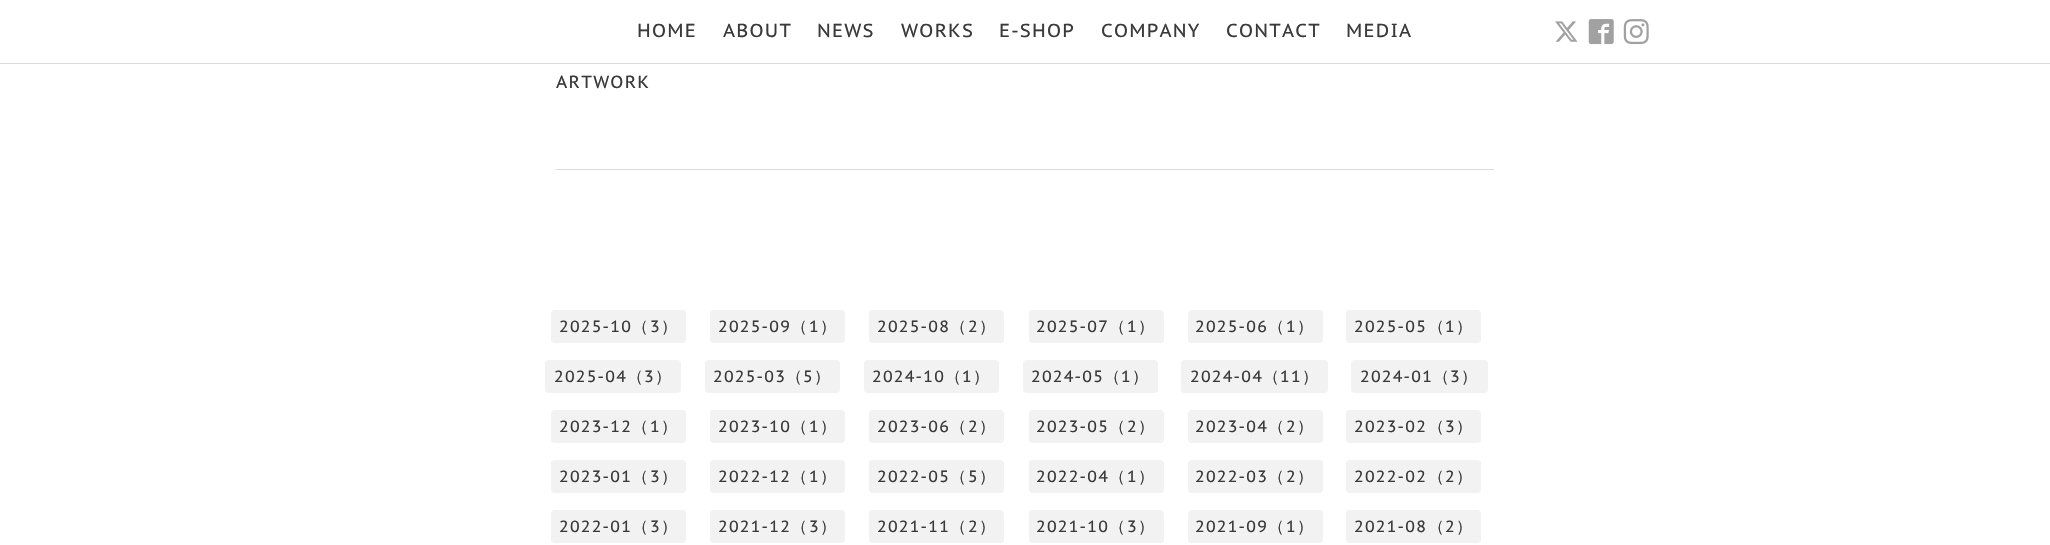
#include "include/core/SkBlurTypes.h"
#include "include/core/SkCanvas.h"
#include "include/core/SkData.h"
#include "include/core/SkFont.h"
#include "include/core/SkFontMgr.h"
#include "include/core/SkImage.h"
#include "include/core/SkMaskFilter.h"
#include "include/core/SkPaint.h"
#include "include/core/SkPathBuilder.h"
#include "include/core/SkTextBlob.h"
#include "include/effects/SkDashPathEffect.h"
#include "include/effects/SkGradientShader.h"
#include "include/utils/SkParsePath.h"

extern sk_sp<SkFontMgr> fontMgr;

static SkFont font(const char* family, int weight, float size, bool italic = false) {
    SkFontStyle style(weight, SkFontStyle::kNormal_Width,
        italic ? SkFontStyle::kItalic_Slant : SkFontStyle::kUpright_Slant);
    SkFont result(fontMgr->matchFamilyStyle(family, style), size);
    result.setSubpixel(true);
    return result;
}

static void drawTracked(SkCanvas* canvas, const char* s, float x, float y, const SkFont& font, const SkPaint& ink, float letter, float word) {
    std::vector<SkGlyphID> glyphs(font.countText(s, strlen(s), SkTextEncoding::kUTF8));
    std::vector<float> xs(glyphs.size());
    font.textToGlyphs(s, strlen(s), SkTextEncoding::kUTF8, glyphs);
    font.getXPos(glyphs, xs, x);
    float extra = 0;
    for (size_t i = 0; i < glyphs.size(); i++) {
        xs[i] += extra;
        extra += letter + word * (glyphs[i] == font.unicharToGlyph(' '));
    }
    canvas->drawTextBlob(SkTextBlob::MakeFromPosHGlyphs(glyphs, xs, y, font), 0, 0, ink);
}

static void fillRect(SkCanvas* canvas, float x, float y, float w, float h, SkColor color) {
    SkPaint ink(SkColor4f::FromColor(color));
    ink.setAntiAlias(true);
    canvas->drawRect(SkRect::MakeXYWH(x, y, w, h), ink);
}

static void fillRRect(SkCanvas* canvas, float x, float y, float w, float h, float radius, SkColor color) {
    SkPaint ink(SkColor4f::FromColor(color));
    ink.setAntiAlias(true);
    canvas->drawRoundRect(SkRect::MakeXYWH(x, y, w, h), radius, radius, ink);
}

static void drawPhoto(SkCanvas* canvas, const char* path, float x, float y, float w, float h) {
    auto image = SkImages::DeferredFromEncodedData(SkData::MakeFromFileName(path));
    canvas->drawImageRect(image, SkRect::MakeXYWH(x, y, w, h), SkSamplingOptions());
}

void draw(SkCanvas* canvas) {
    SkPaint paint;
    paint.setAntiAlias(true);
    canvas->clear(0xFFFFFFFF);
    fillRect(canvas, 0, 63, 2050, 1, 0xFFDADBDB);
    SkFont font1 = font("PT Sans Caption", 400, 18.75f);
    paint.setColor(0xFF3A3A3A);
    drawTracked(canvas, "HOME", 637, 37, font1, paint, 1.25f, 0);
    drawTracked(canvas, "ABOUT", 723, 37, font1, paint, 1.25f, 0);
    drawTracked(canvas, "NEWS", 817, 37, font1, paint, 1.25f, 0);
    drawTracked(canvas, "WORKS", 901, 37, font1, paint, 1.25f, 0);
    drawTracked(canvas, "E-SHOP", 999, 37, font1, paint, 1.25f, 0);
    drawTracked(canvas, "COMPANY", 1101, 37, font1, paint, 1.25f, 0);
    drawTracked(canvas, "CONTACT", 1226, 37, font1, paint, 1.25f, 0);
    drawTracked(canvas, "MEDIA", 1346, 37, font1, paint, 1.25f, 0);
    drawPhoto(canvas, "assets/img1.png", 1555, 21, 23, 21);
    drawPhoto(canvas, "assets/img2.png", 1588, 19, 26, 26);
    drawPhoto(canvas, "assets/img3.png", 1623, 19, 26, 26);
    fillRect(canvas, 556, 169, 938, 1, 0xFFDADBDB);
    SkFont font2 = font("PT Sans Caption", 400, 17.5f);
    drawTracked(canvas, "ARTWORK", 556, 88, font2, paint, 1.25f, 0);
    fillRRect(canvas, 551, 310, 135, 33, 4, 0xFFF2F2F2);
    SkFont font3 = font("PT Sans Caption", 400, 16.25f);
    drawTracked(canvas, "2025-10", 559, 332, font3, paint, 1.25f, 0);
    SkFont font4 = font("WenQuanYi Zen Hei", 500, 16.25f);
    drawTracked(canvas, "（", 632, 332, font4, paint, 1.25f, 0);
    drawTracked(canvas, "3", 650, 332, font3, paint, 1.25f, 0);
    drawTracked(canvas, "）", 661, 332, font4, paint, 1.25f, 0);
    fillRRect(canvas, 710, 310, 135, 33, 4, 0xFFF2F2F2);
    drawTracked(canvas, "2025-09", 718, 332, font3, paint, 1.25f, 0);
    drawTracked(canvas, "（", 791, 332, font4, paint, 1.25f, 0);
    drawTracked(canvas, "1", 809, 332, font3, paint, 1.25f, 0);
    drawTracked(canvas, "）", 820, 332, font4, paint, 1.25f, 0);
    fillRRect(canvas, 869, 310, 135, 33, 4, 0xFFF2F2F2);
    drawTracked(canvas, "2025-08", 877, 332, font3, paint, 1.25f, 0);
    drawTracked(canvas, "（", 950, 332, font4, paint, 1.25f, 0);
    drawTracked(canvas, "2", 968, 332, font3, paint, 1.25f, 0);
    drawTracked(canvas, "）", 979, 332, font4, paint, 1.25f, 0);
    fillRRect(canvas, 1029, 310, 135, 33, 4, 0xFFF2F2F2);
    drawTracked(canvas, "2025-07", 1036, 332, font3, paint, 1.25f, 0);
    drawTracked(canvas, "（", 1109, 332, font4, paint, 1.25f, 0);
    drawTracked(canvas, "1", 1127, 332, font3, paint, 1.25f, 0);
    drawTracked(canvas, "）", 1138, 332, font4, paint, 1.25f, 0);
    fillRRect(canvas, 1188, 310, 135, 33, 4, 0xFFF2F2F2);
    drawTracked(canvas, "2025-06", 1195, 332, font3, paint, 1.25f, 0);
    drawTracked(canvas, "（", 1268, 332, font4, paint, 1.25f, 0);
    drawTracked(canvas, "1", 1286, 332, font3, paint, 1.25f, 0);
    drawTracked(canvas, "）", 1297, 332, font4, paint, 1.25f, 0);
    fillRRect(canvas, 1346, 310, 135, 33, 4, 0xFFF2F2F2);
    drawTracked(canvas, "2025-05", 1354, 332, font3, paint, 1.25f, 0);
    drawTracked(canvas, "（", 1428, 332, font4, paint, 1.25f, 0);
    drawTracked(canvas, "1", 1445, 332, font3, paint, 1.25f, 0);
    drawTracked(canvas, "）", 1456, 332, font4, paint, 1.25f, 0);
    fillRRect(canvas, 545, 360, 136, 33, 4, 0xFFF2F2F2);
    drawTracked(canvas, "2025-04", 554, 382, font3, paint, 1.25f, 0);
    drawTracked(canvas, "（", 627, 382, font4, paint, 1.25f, 0);
    drawTracked(canvas, "3", 644, 382, font3, paint, 1.25f, 0);
    drawTracked(canvas, "）", 655, 382, font4, paint, 1.25f, 0);
    fillRRect(canvas, 705, 360, 135, 33, 4, 0xFFF2F2F2);
    drawTracked(canvas, "2025-03", 713, 382, font3, paint, 1.25f, 0);
    drawTracked(canvas, "（", 786, 382, font4, paint, 1.25f, 0);
    drawTracked(canvas, "5", 803, 382, font3, paint, 1.25f, 0);
    drawTracked(canvas, "）", 814, 382, font4, paint, 1.25f, 0);
    fillRRect(canvas, 864, 360, 135, 33, 4, 0xFFF2F2F2);
    drawTracked(canvas, "2024-10", 872, 382, font3, paint, 1.25f, 0);
    drawTracked(canvas, "（", 945, 382, font4, paint, 1.25f, 0);
    drawTracked(canvas, "1", 962, 382, font3, paint, 1.25f, 0);
    drawTracked(canvas, "）", 973, 382, font4, paint, 1.25f, 0);
    fillRRect(canvas, 1023, 360, 135, 33, 4, 0xFFF2F2F2);
    drawTracked(canvas, "2024-05", 1031, 382, font3, paint, 1.25f, 0);
    drawTracked(canvas, "（", 1104, 382, font4, paint, 1.25f, 0);
    drawTracked(canvas, "1", 1121, 382, font3, paint, 1.25f, 0);
    drawTracked(canvas, "）", 1132, 382, font4, paint, 1.25f, 0);
    fillRRect(canvas, 1181, 360, 147, 33, 4, 0xFFF2F2F2);
    drawTracked(canvas, "2024-04", 1190, 382, font3, paint, 1.25f, 0);
    drawTracked(canvas, "（", 1263, 382, font4, paint, 1.25f, 0);
    drawTracked(canvas, "11", 1280, 382, font3, paint, 1.25f, 0);
    drawTracked(canvas, "）", 1302, 382, font4, paint, 1.25f, 0);
    fillRRect(canvas, 1351, 360, 137, 33, 4, 0xFFF2F2F2);
    drawTracked(canvas, "2024-01", 1360, 382, font3, paint, 1.25f, 0);
    drawTracked(canvas, "（", 1433, 382, font4, paint, 1.25f, 0);
    drawTracked(canvas, "3", 1450, 382, font3, paint, 1.25f, 0);
    drawTracked(canvas, "）", 1461, 382, font4, paint, 1.25f, 0);
    fillRRect(canvas, 551, 410, 135, 33, 4, 0xFFF2F2F2);
    drawTracked(canvas, "2023-12", 559, 432, font3, paint, 1.25f, 0);
    drawTracked(canvas, "（", 632, 432, font4, paint, 1.25f, 0);
    drawTracked(canvas, "1", 650, 432, font3, paint, 1.25f, 0);
    drawTracked(canvas, "）", 661, 432, font4, paint, 1.25f, 0);
    fillRRect(canvas, 710, 410, 135, 33, 4, 0xFFF2F2F2);
    drawTracked(canvas, "2023-10", 718, 432, font3, paint, 1.25f, 0);
    drawTracked(canvas, "（", 791, 432, font4, paint, 1.25f, 0);
    drawTracked(canvas, "1", 809, 432, font3, paint, 1.25f, 0);
    drawTracked(canvas, "）", 820, 432, font4, paint, 1.25f, 0);
    fillRRect(canvas, 869, 410, 135, 33, 4, 0xFFF2F2F2);
    drawTracked(canvas, "2023-06", 877, 432, font3, paint, 1.25f, 0);
    drawTracked(canvas, "（", 950, 432, font4, paint, 1.25f, 0);
    drawTracked(canvas, "2", 968, 432, font3, paint, 1.25f, 0);
    drawTracked(canvas, "）", 979, 432, font4, paint, 1.25f, 0);
    fillRRect(canvas, 1029, 410, 135, 33, 4, 0xFFF2F2F2);
    drawTracked(canvas, "2023-05", 1036, 432, font3, paint, 1.25f, 0);
    drawTracked(canvas, "（", 1109, 432, font4, paint, 1.25f, 0);
    drawTracked(canvas, "2", 1127, 432, font3, paint, 1.25f, 0);
    drawTracked(canvas, "）", 1138, 432, font4, paint, 1.25f, 0);
    fillRRect(canvas, 1188, 410, 135, 33, 4, 0xFFF2F2F2);
    drawTracked(canvas, "2023-04", 1195, 432, font3, paint, 1.25f, 0);
    drawTracked(canvas, "（", 1268, 432, font4, paint, 1.25f, 0);
    drawTracked(canvas, "2", 1286, 432, font3, paint, 1.25f, 0);
    drawTracked(canvas, "）", 1297, 432, font4, paint, 1.25f, 0);
    fillRRect(canvas, 1346, 410, 135, 33, 4, 0xFFF2F2F2);
    drawTracked(canvas, "2023-02", 1354, 432, font3, paint, 1.25f, 0);
    drawTracked(canvas, "（", 1428, 432, font4, paint, 1.25f, 0);
    drawTracked(canvas, "3", 1445, 432, font3, paint, 1.25f, 0);
    drawTracked(canvas, "）", 1456, 432, font4, paint, 1.25f, 0);
    fillRRect(canvas, 551, 460, 135, 33, 4, 0xFFF2F2F2);
    drawTracked(canvas, "2023-01", 559, 482, font3, paint, 1.25f, 0);
    drawTracked(canvas, "（", 632, 482, font4, paint, 1.25f, 0);
    drawTracked(canvas, "3", 650, 482, font3, paint, 1.25f, 0);
    drawTracked(canvas, "）", 661, 482, font4, paint, 1.25f, 0);
    fillRRect(canvas, 710, 460, 135, 33, 4, 0xFFF2F2F2);
    drawTracked(canvas, "2022-12", 718, 482, font3, paint, 1.25f, 0);
    drawTracked(canvas, "（", 791, 482, font4, paint, 1.25f, 0);
    drawTracked(canvas, "1", 809, 482, font3, paint, 1.25f, 0);
    drawTracked(canvas, "）", 820, 482, font4, paint, 1.25f, 0);
    fillRRect(canvas, 869, 460, 135, 33, 4, 0xFFF2F2F2);
    drawTracked(canvas, "2022-05", 877, 482, font3, paint, 1.25f, 0);
    drawTracked(canvas, "（", 950, 482, font4, paint, 1.25f, 0);
    drawTracked(canvas, "5", 968, 482, font3, paint, 1.25f, 0);
    drawTracked(canvas, "）", 979, 482, font4, paint, 1.25f, 0);
    fillRRect(canvas, 1029, 460, 135, 33, 4, 0xFFF2F2F2);
    drawTracked(canvas, "2022-04", 1036, 482, font3, paint, 1.25f, 0);
    drawTracked(canvas, "（", 1109, 482, font4, paint, 1.25f, 0);
    drawTracked(canvas, "1", 1127, 482, font3, paint, 1.25f, 0);
    drawTracked(canvas, "）", 1138, 482, font4, paint, 1.25f, 0);
    fillRRect(canvas, 1188, 460, 135, 33, 4, 0xFFF2F2F2);
    drawTracked(canvas, "2022-03", 1195, 482, font3, paint, 1.25f, 0);
    drawTracked(canvas, "（", 1268, 482, font4, paint, 1.25f, 0);
    drawTracked(canvas, "2", 1286, 482, font3, paint, 1.25f, 0);
    drawTracked(canvas, "）", 1297, 482, font4, paint, 1.25f, 0);
    fillRRect(canvas, 1346, 460, 135, 33, 4, 0xFFF2F2F2);
    drawTracked(canvas, "2022-02", 1354, 482, font3, paint, 1.25f, 0);
    drawTracked(canvas, "（", 1428, 482, font4, paint, 1.25f, 0);
    drawTracked(canvas, "2", 1445, 482, font3, paint, 1.25f, 0);
    drawTracked(canvas, "）", 1456, 482, font4, paint, 1.25f, 0);
    fillRRect(canvas, 551, 510, 135, 33, 4, 0xFFF2F2F2);
    drawTracked(canvas, "2022-01", 559, 532, font3, paint, 1.25f, 0);
    drawTracked(canvas, "（", 632, 532, font4, paint, 1.25f, 0);
    drawTracked(canvas, "3", 650, 532, font3, paint, 1.25f, 0);
    drawTracked(canvas, "）", 661, 532, font4, paint, 1.25f, 0);
    fillRRect(canvas, 710, 510, 135, 33, 4, 0xFFF2F2F2);
    drawTracked(canvas, "2021-12", 718, 532, font3, paint, 1.25f, 0);
    drawTracked(canvas, "（", 791, 532, font4, paint, 1.25f, 0);
    drawTracked(canvas, "3", 809, 532, font3, paint, 1.25f, 0);
    drawTracked(canvas, "）", 820, 532, font4, paint, 1.25f, 0);
    fillRRect(canvas, 869, 510, 135, 33, 4, 0xFFF2F2F2);
    drawTracked(canvas, "2021-11", 877, 532, font3, paint, 1.25f, 0);
    drawTracked(canvas, "（", 950, 532, font4, paint, 1.25f, 0);
    drawTracked(canvas, "2", 968, 532, font3, paint, 1.25f, 0);
    drawTracked(canvas, "）", 979, 532, font4, paint, 1.25f, 0);
    fillRRect(canvas, 1029, 510, 135, 33, 4, 0xFFF2F2F2);
    drawTracked(canvas, "2021-10", 1036, 532, font3, paint, 1.25f, 0);
    drawTracked(canvas, "（", 1109, 532, font4, paint, 1.25f, 0);
    drawTracked(canvas, "3", 1127, 532, font3, paint, 1.25f, 0);
    drawTracked(canvas, "）", 1138, 532, font4, paint, 1.25f, 0);
    fillRRect(canvas, 1188, 510, 135, 33, 4, 0xFFF2F2F2);
    drawTracked(canvas, "2021-09", 1195, 532, font3, paint, 1.25f, 0);
    drawTracked(canvas, "（", 1268, 532, font4, paint, 1.25f, 0);
    drawTracked(canvas, "1", 1286, 532, font3, paint, 1.25f, 0);
    drawTracked(canvas, "）", 1297, 532, font4, paint, 1.25f, 0);
    fillRRect(canvas, 1346, 510, 135, 33, 4, 0xFFF2F2F2);
    drawTracked(canvas, "2021-08", 1354, 532, font3, paint, 1.25f, 0);
    drawTracked(canvas, "（", 1428, 532, font4, paint, 1.25f, 0);
    drawTracked(canvas, "2", 1445, 532, font3, paint, 1.25f, 0);
    drawTracked(canvas, "）", 1456, 532, font4, paint, 1.25f, 0);
}
